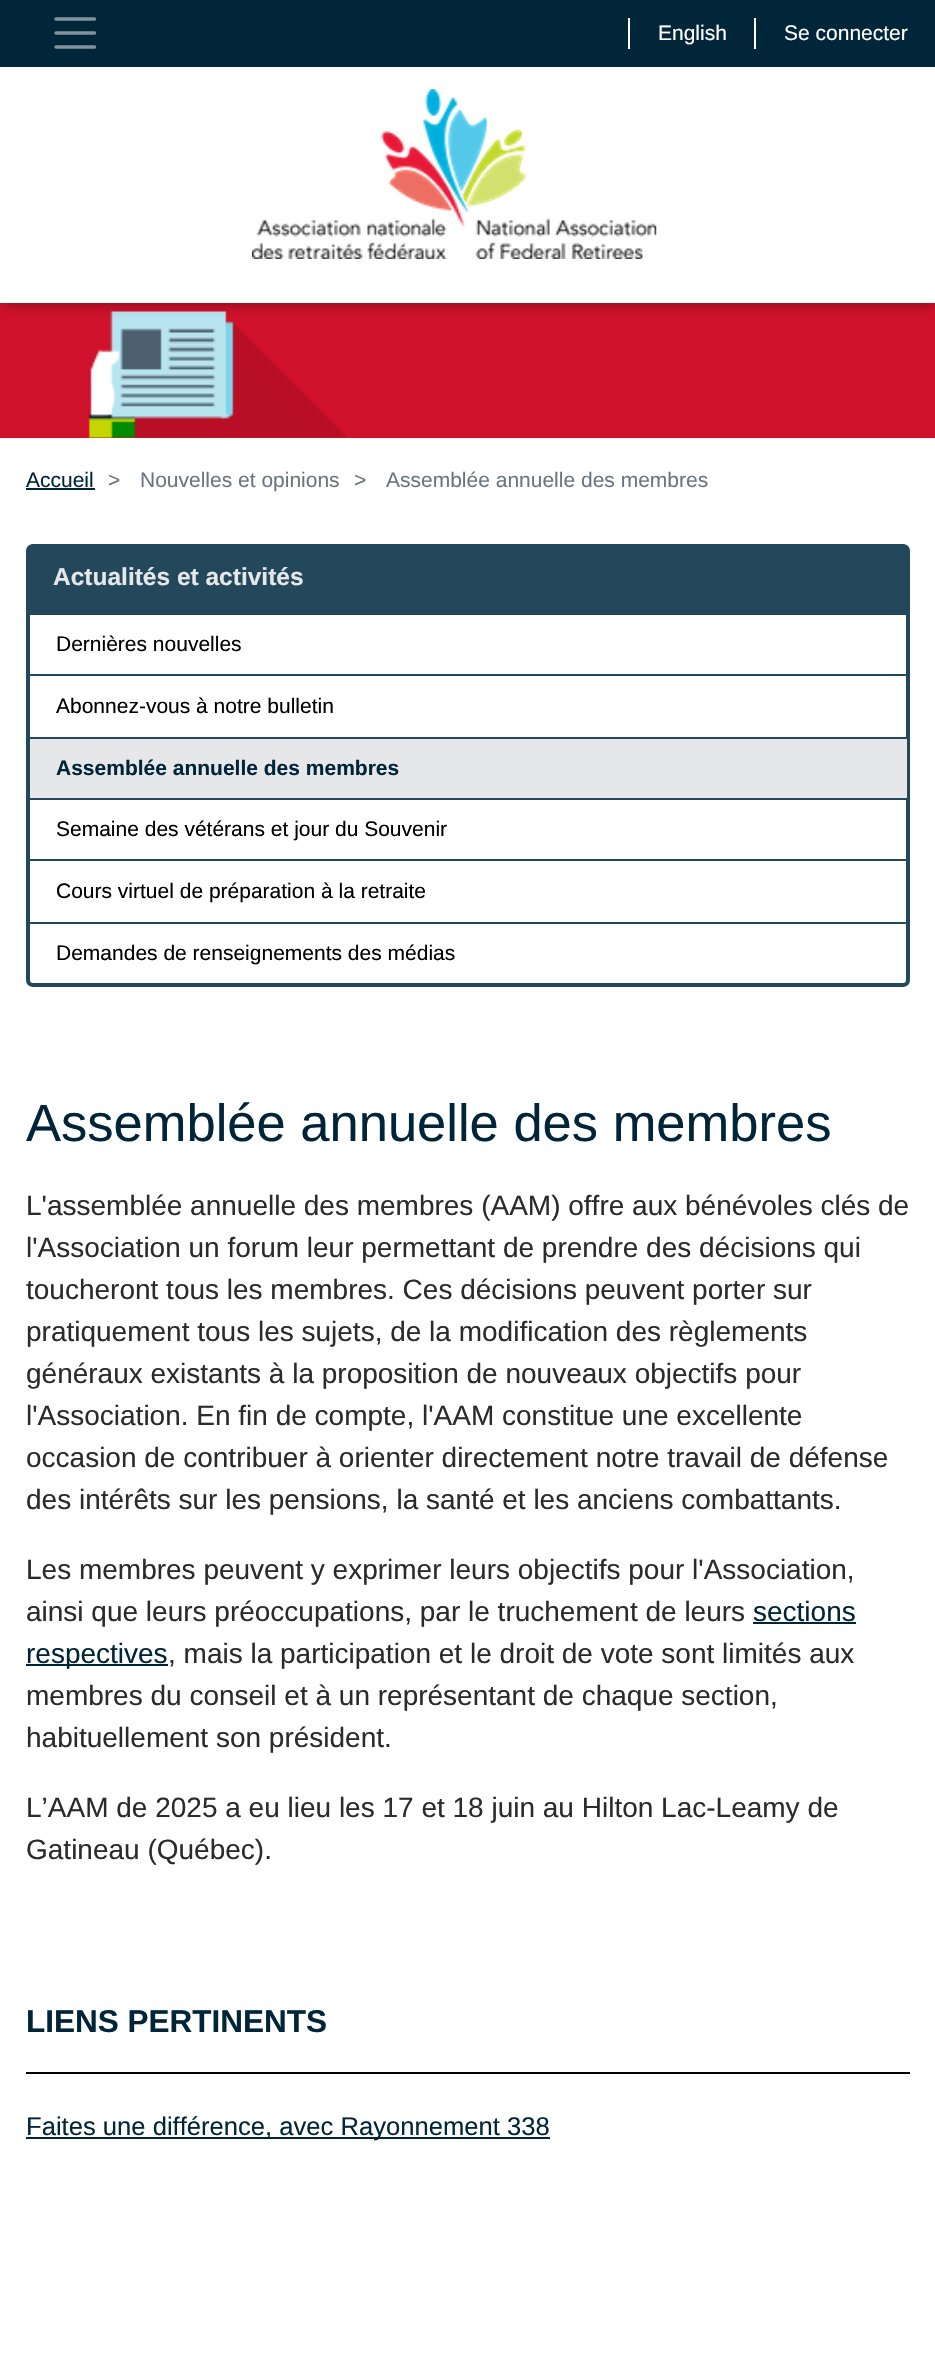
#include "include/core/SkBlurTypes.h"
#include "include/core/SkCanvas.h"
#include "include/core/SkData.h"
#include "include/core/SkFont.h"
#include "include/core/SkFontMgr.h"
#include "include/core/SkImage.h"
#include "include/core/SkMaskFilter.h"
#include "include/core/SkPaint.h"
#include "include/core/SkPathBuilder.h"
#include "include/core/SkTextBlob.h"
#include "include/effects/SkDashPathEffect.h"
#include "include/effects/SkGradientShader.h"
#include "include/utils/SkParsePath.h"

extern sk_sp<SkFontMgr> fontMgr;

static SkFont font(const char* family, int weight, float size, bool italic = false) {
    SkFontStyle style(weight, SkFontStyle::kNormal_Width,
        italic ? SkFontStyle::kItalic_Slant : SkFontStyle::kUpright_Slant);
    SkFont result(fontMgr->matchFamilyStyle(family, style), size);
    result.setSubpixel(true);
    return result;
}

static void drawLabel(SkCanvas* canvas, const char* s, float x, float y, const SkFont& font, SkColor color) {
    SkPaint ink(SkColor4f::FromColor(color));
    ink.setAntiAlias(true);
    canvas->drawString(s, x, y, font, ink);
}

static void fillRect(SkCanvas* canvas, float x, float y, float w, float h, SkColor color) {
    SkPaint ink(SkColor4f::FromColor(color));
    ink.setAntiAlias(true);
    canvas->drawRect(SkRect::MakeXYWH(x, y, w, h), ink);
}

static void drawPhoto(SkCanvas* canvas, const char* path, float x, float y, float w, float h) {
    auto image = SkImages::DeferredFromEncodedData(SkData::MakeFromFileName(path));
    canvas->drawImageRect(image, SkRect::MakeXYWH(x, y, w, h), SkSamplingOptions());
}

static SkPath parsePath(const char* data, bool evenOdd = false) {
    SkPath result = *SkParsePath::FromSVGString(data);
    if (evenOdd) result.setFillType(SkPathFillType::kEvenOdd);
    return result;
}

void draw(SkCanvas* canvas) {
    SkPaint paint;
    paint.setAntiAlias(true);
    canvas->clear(0xFFFFFFFF);
    fillRect(canvas, 0, 0, 935, 67, 0xFF012639);
    paint.setStroke(true);
    paint.setStrokeWidth(3.5f);
    paint.setStrokeCap(SkPaint::kRound_Cap);
    paint.setColor(0xFF80939C);
    canvas->drawPath(parsePath("M56 19H94.5M56 33H94.5M56 47H94.5"), paint);
    fillRect(canvas, 628, 18, 2, 31, 0xFFFFFFFF);
    SkFont font1 = font("Liberation Sans", 400, 21);
    drawLabel(canvas, "English", 658, 40, font1, 0xFFFFFFFF);
    fillRect(canvas, 754, 18, 2, 31, 0xFFFFFFFF);
    drawLabel(canvas, "Se connecter", 784, 40, font1, 0xFFFFFFFF);
    fillRect(canvas, 0, 303, 935, 135, 0xFFD0112B);
    drawPhoto(canvas, "assets/img2.png", 88, 311, 259, 127);
    paint.setStroke(false);
    paint.setColor(0x4D000000);
    paint.setMaskFilter(SkMaskFilter::MakeBlur(kNormal_SkBlurStyle, 5));
    canvas->drawRect(SkRect::MakeXYWH(4, 77, 929, 229), paint);
    paint.setMaskFilter(nullptr);
    fillRect(canvas, 0, 68, 935, 235, 0xFFFFFFFF);
    drawPhoto(canvas, "assets/img1.png", 252, 89, 405, 170);
    drawLabel(canvas, "Accueil", 26, 487, font1, 0xFF002539);
    fillRect(canvas, 26, 488, 69, 2, 0xFF002539);
    drawLabel(canvas, ">", 108, 487, font1, 0xFF6C757D);
    drawLabel(canvas, "Nouvelles et opinions", 140, 487, font1, 0xFF6C757D);
    drawLabel(canvas, ">", 354, 487, font1, 0xFF6C757D);
    drawLabel(canvas, "Assemblée annuelle des membres", 386, 487, font1, 0xFF6C757D);
    paint.setColor(0xFF23485B);
    canvas->drawPath(parsePath("M33 544H903C907 544 910 547 910 551V609H26V551C26 547 29 544 33 544Z"), paint);
    SkFont font2 = font("Liberation Sans", 700, 24.5f);
    drawLabel(canvas, "Actualités et activités", 53, 585, font2, 0xFFE6E7E8);
    paint.setStroke(true);
    paint.setStrokeWidth(4);
    paint.setStrokeCap(SkPaint::kButt_Cap);
    canvas->drawPath(parsePath("M28 611H908V980C908 983 906 985 903 985H33C30 985 28 983 28 980Z"), paint);
    fillRect(canvas, 30, 613, 877, 2, 0xFF23485B);
    drawLabel(canvas, "Dernières nouvelles", 56, 651, font1, 0xFF000000);
    fillRect(canvas, 30, 674, 877, 2, 0xFF23485B);
    drawLabel(canvas, "Abonnez-vous à notre bulletin", 56, 713, font1, 0xFF000000);
    fillRect(canvas, 30, 739, 877, 59, 0xFFE6E7E8);
    fillRect(canvas, 30, 737, 877, 2, 0xFF23485B);
    SkFont font3 = font("Liberation Sans", 700, 21);
    drawLabel(canvas, "Assemblée annuelle des membres", 56, 775, font3, 0xFF002539);
    fillRect(canvas, 30, 798, 877, 2, 0xFF23485B);
    drawLabel(canvas, "Semaine des vétérans et jour du Souvenir", 56, 836, font1, 0xFF000000);
    fillRect(canvas, 30, 859, 877, 2, 0xFF23485B);
    drawLabel(canvas, "Cours virtuel de préparation à la retraite", 56, 898, font1, 0xFF000000);
    fillRect(canvas, 30, 922, 877, 2, 0xFF23485B);
    drawLabel(canvas, "Demandes de renseignements des médias", 56, 960, font1, 0xFF000000);
    SkFont font4 = font("Liberation Sans", 400, 52.5f);
    drawLabel(canvas, "Assemblée annuelle des membres", 26, 1141, font4, 0xFF002539);
    SkFont font5 = font("Liberation Sans", 400, 28);
    drawLabel(canvas, "L'assemblée annuelle des membres (AAM) offre aux bénévoles clés de", 26, 1215, font5, 0xFF2B2B2B);
    drawLabel(canvas, "l'Association un forum leur permettant de prendre des décisions qui", 26, 1257, font5, 0xFF2B2B2B);
    drawLabel(canvas, "toucheront tous les membres. Ces décisions peuvent porter sur", 26, 1299, font5, 0xFF2B2B2B);
    drawLabel(canvas, "pratiquement tous les sujets, de la modification des règlements", 26, 1341, font5, 0xFF2B2B2B);
    drawLabel(canvas, "généraux existants à la proposition de nouveaux objectifs pour", 26, 1383, font5, 0xFF2B2B2B);
    drawLabel(canvas, "l'Association. En fin de compte, l'AAM constitue une excellente", 26, 1425, font5, 0xFF2B2B2B);
    drawLabel(canvas, "occasion de contribuer à orienter directement notre travail de défense", 26, 1467, font5, 0xFF2B2B2B);
    drawLabel(canvas, "des intérêts sur les pensions, la santé et les anciens combattants.", 26, 1509, font5, 0xFF2B2B2B);
    drawLabel(canvas, "Les membres peuvent y exprimer leurs objectifs pour l'Association,", 26, 1579, font5, 0xFF2B2B2B);
    drawLabel(canvas, "ainsi que leurs préoccupations, par le truchement de leurs", 26, 1621, font5, 0xFF2B2B2B);
    drawLabel(canvas, "sections", 753, 1621, font5, 0xFF002539);
    fillRect(canvas, 753, 1622, 103, 2, 0xFF002539);
    fillRect(canvas, 26, 1664, 142, 2, 0xFF002539);
    drawLabel(canvas, "respectives", 26, 1663, font5, 0xFF002539);
    drawLabel(canvas, ", mais la participation et le droit de vote sont limités aux", 168, 1663, font5, 0xFF2B2B2B);
    drawLabel(canvas, "membres du conseil et à un représentant de chaque section,", 26, 1705, font5, 0xFF2B2B2B);
    drawLabel(canvas, "habituellement son président.", 26, 1747, font5, 0xFF2B2B2B);
    drawLabel(canvas, "L’AAM de 2025 a eu lieu les 17 et 18 juin au Hilton Lac-Leamy de", 26, 1817, font5, 0xFF2B2B2B);
    drawLabel(canvas, "Gatineau (Québec).", 26, 1859, font5, 0xFF2B2B2B);
    fillRect(canvas, 26, 2072, 884, 2, 0xFF000000);
    SkFont font6 = font("Liberation Sans", 700, 31.5f);
    drawLabel(canvas, "LIENS PERTINENTS", 26, 2032, font6, 0xFF002539);
    fillRect(canvas, 26, 2137, 524, 2, 0xFF002539);
    SkFont font7 = font("Liberation Sans", 400, 25.6f);
    drawLabel(canvas, "Faites une différence, avec Rayonnement 338", 26, 2135, font7, 0xFF002539);
}
